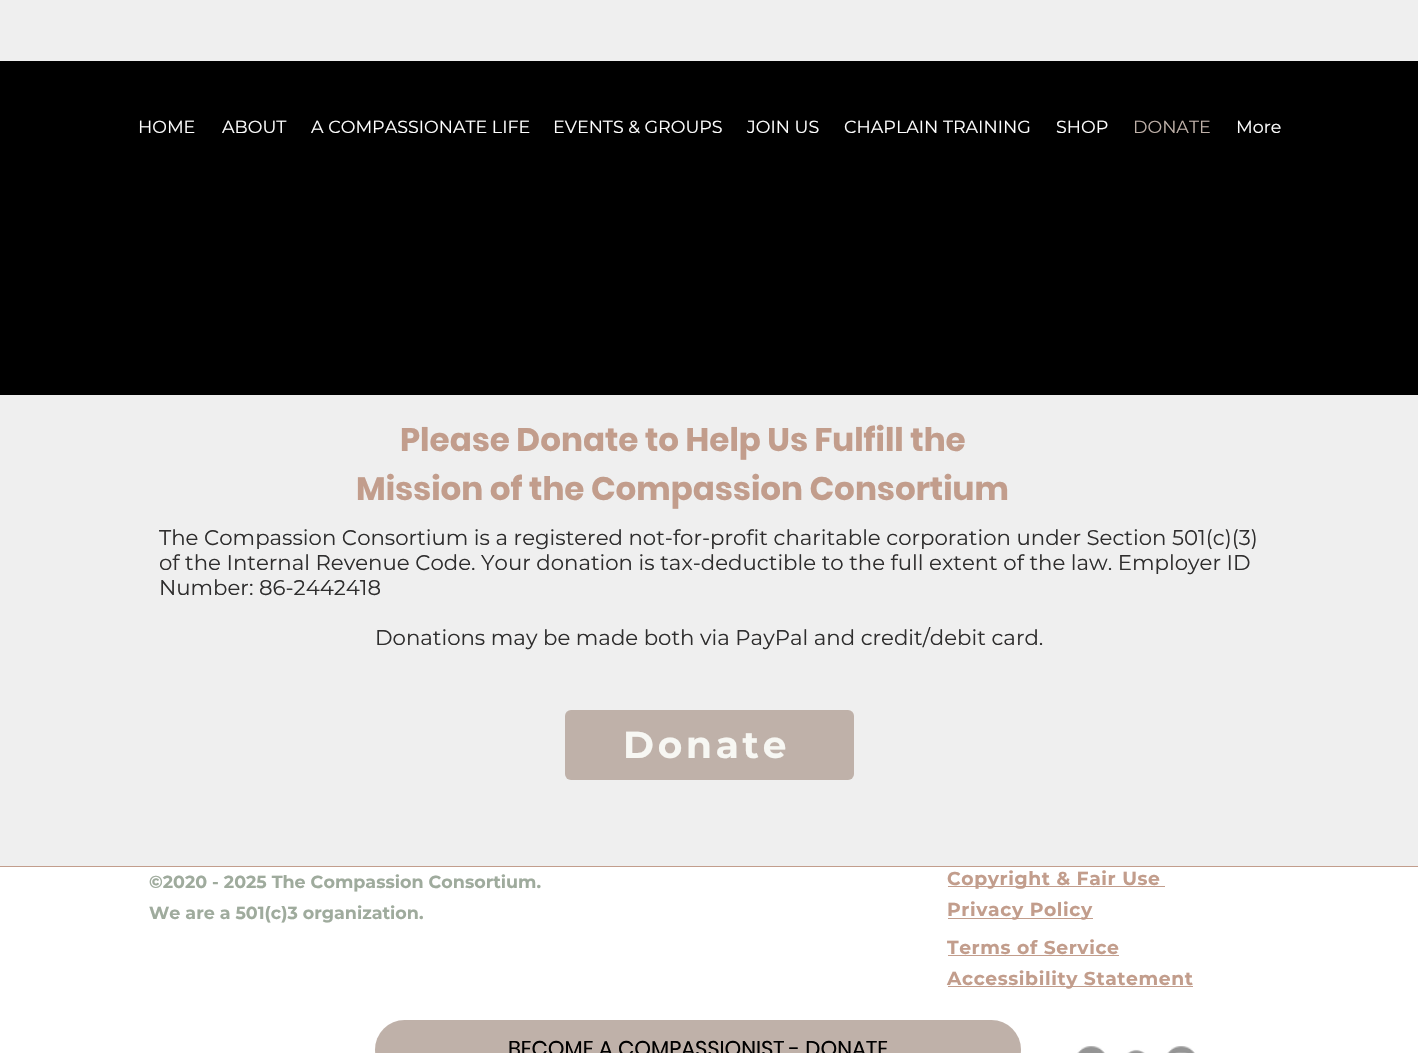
#include "include/core/SkBlurTypes.h"
#include "include/core/SkCanvas.h"
#include "include/core/SkData.h"
#include "include/core/SkFont.h"
#include "include/core/SkFontMgr.h"
#include "include/core/SkImage.h"
#include "include/core/SkMaskFilter.h"
#include "include/core/SkPaint.h"
#include "include/core/SkPathBuilder.h"
#include "include/core/SkTextBlob.h"
#include "include/effects/SkDashPathEffect.h"
#include "include/effects/SkGradientShader.h"
#include "include/utils/SkParsePath.h"

extern sk_sp<SkFontMgr> fontMgr;

static SkFont font(const char* family, int weight, float size, bool italic = false) {
    SkFontStyle style(weight, SkFontStyle::kNormal_Width,
        italic ? SkFontStyle::kItalic_Slant : SkFontStyle::kUpright_Slant);
    SkFont result(fontMgr->matchFamilyStyle(family, style), size);
    result.setSubpixel(true);
    return result;
}

static void drawLabel(SkCanvas* canvas, const char* s, float x, float y, const SkFont& font, SkColor color) {
    SkPaint ink(SkColor4f::FromColor(color));
    ink.setAntiAlias(true);
    canvas->drawString(s, x, y, font, ink);
}

static void drawTracked(SkCanvas* canvas, const char* s, float x, float y, const SkFont& font, const SkPaint& ink, float letter, float word) {
    std::vector<SkGlyphID> glyphs(font.countText(s, strlen(s), SkTextEncoding::kUTF8));
    std::vector<float> xs(glyphs.size());
    font.textToGlyphs(s, strlen(s), SkTextEncoding::kUTF8, glyphs);
    font.getXPos(glyphs, xs, x);
    float extra = 0;
    for (size_t i = 0; i < glyphs.size(); i++) {
        xs[i] += extra;
        extra += letter + word * (glyphs[i] == font.unicharToGlyph(' '));
    }
    canvas->drawTextBlob(SkTextBlob::MakeFromPosHGlyphs(glyphs, xs, y, font), 0, 0, ink);
}

static void fillRect(SkCanvas* canvas, float x, float y, float w, float h, SkColor color) {
    SkPaint ink(SkColor4f::FromColor(color));
    ink.setAntiAlias(true);
    canvas->drawRect(SkRect::MakeXYWH(x, y, w, h), ink);
}

static void fillRRect(SkCanvas* canvas, float x, float y, float w, float h, float radius, SkColor color) {
    SkPaint ink(SkColor4f::FromColor(color));
    ink.setAntiAlias(true);
    canvas->drawRoundRect(SkRect::MakeXYWH(x, y, w, h), radius, radius, ink);
}

static void drawPhoto(SkCanvas* canvas, const char* path, float x, float y, float w, float h) {
    auto image = SkImages::DeferredFromEncodedData(SkData::MakeFromFileName(path));
    canvas->drawImageRect(image, SkRect::MakeXYWH(x, y, w, h), SkSamplingOptions());
}

void draw(SkCanvas* canvas) {
    SkPaint paint;
    paint.setAntiAlias(true);
    canvas->clear(0xFFEFEFEF);
    fillRect(canvas, 0, 61, 1418, 334, 0xFF000000);
    SkFont font1 = font("Montserrat", 400, 17.5f);
    drawLabel(canvas, "HOME", 138, 133, font1, 0xFFFFFFFF);
    drawLabel(canvas, "ABOUT", 222, 133, font1, 0xFFFFFFFF);
    drawLabel(canvas, "A COMPASSIONATE LIFE", 311, 133, font1, 0xFFFFFFFF);
    drawLabel(canvas, "EVENTS & GROUPS", 553, 133, font1, 0xFFFFFFFF);
    drawLabel(canvas, "JOIN US", 747, 133, font1, 0xFFFFFFFF);
    drawLabel(canvas, "CHAPLAIN TRAINING", 844, 133, font1, 0xFFFFFFFF);
    drawLabel(canvas, "SHOP", 1056, 133, font1, 0xFFFFFFFF);
    drawLabel(canvas, "DONATE", 1133, 133, font1, 0xFFBFB1A9);
    drawLabel(canvas, "More", 1236, 133, font1, 0xFFFFFFFF);
    SkFont font2 = font("Poppins", 700, 32.5f);
    drawLabel(canvas, "Please Donate to Help Us Fulfill the", 400, 451, font2, 0xFFC29D8C);
    drawLabel(canvas, "Mission of the Compassion Consortium", 356, 500, font2, 0xFFC29D8C);
    SkFont font3 = font("Montserrat", 400, 21.25f);
    drawLabel(canvas, "The Compassion Consortium is a registered not-for-profit charitable corporation under Section 501(c)(3)", 159, 545, font3, 0xFF2F2E2E);
    drawLabel(canvas, "of the Internal Revenue Code. Your donation is tax-deductible to the full extent of the law. Employer ID", 159, 570, font3, 0xFF2F2E2E);
    drawLabel(canvas, "Number: 86-2442418", 159, 595, font3, 0xFF2F2E2E);
    drawLabel(canvas, "Donations may be made both via PayPal and credit/debit card.", 375, 645, font3, 0xFF2F2E2E);
    fillRRect(canvas, 565, 710, 289, 70, 6, 0xFFBFB1A9);
    SkFont font4 = font("Montserrat", 700, 37.5f);
    paint.setColor(0xFFF7F7F3);
    drawTracked(canvas, "Donate", 623, 758, font4, paint, 3.75f, 0);
    fillRect(canvas, 0, 867, 1418, 186, 0xFFFFFFFF);
    fillRect(canvas, 0, 866, 1418, 1, 0xFFC29D8C);
    SkFont font5 = font("Montserrat", 700, 17.5f);
    drawLabel(canvas, "©2020 - 2025 The Compassion Consortium.", 149, 888, font5, 0xFF9FAB9D);
    drawLabel(canvas, "We are a 501(c)3 organization.", 149, 919, font5, 0xFF9FAB9D);
    fillRect(canvas, 948, 886, 217, 1, 0xFFC29D8C);
    SkFont font6 = font("Montserrat", 700, 18.75f);
    paint.setColor(0xFFC29D8C);
    drawTracked(canvas, "Copyright & Fair Use", 947, 885, font6, paint, 0.6f, 0);
    fillRect(canvas, 948, 918, 145, 1, 0xFFC29D8C);
    drawTracked(canvas, "Privacy Policy", 947, 916, font6, paint, 0.6f, 0);
    drawTracked(canvas, "Terms of Service", 947, 954, font6, paint, 0.6f, 0);
    fillRect(canvas, 948, 955, 171, 1, 0xFFC29D8C);
    fillRect(canvas, 948, 986, 245, 1, 0xFFC29D8C);
    drawTracked(canvas, "Accessibility Statement", 947, 985, font6, paint, 0.6f, 0);
    fillRRect(canvas, 375, 1020, 646, 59, 29.5f, 0xFFBFB1A9);
    SkFont font7 = font("Poppins", 400, 21.25f);
    drawLabel(canvas, "BECOME A COMPASSIONIST - DONATE", 508, 1056, font7, 0xFF000000);
    drawPhoto(canvas, "assets/img1.png", 1077, 1046, 28, 7);
    drawPhoto(canvas, "assets/img2.png", 1127, 1049, 18, 4);
    drawPhoto(canvas, "assets/img3.png", 1167, 1046, 28, 7);
}
